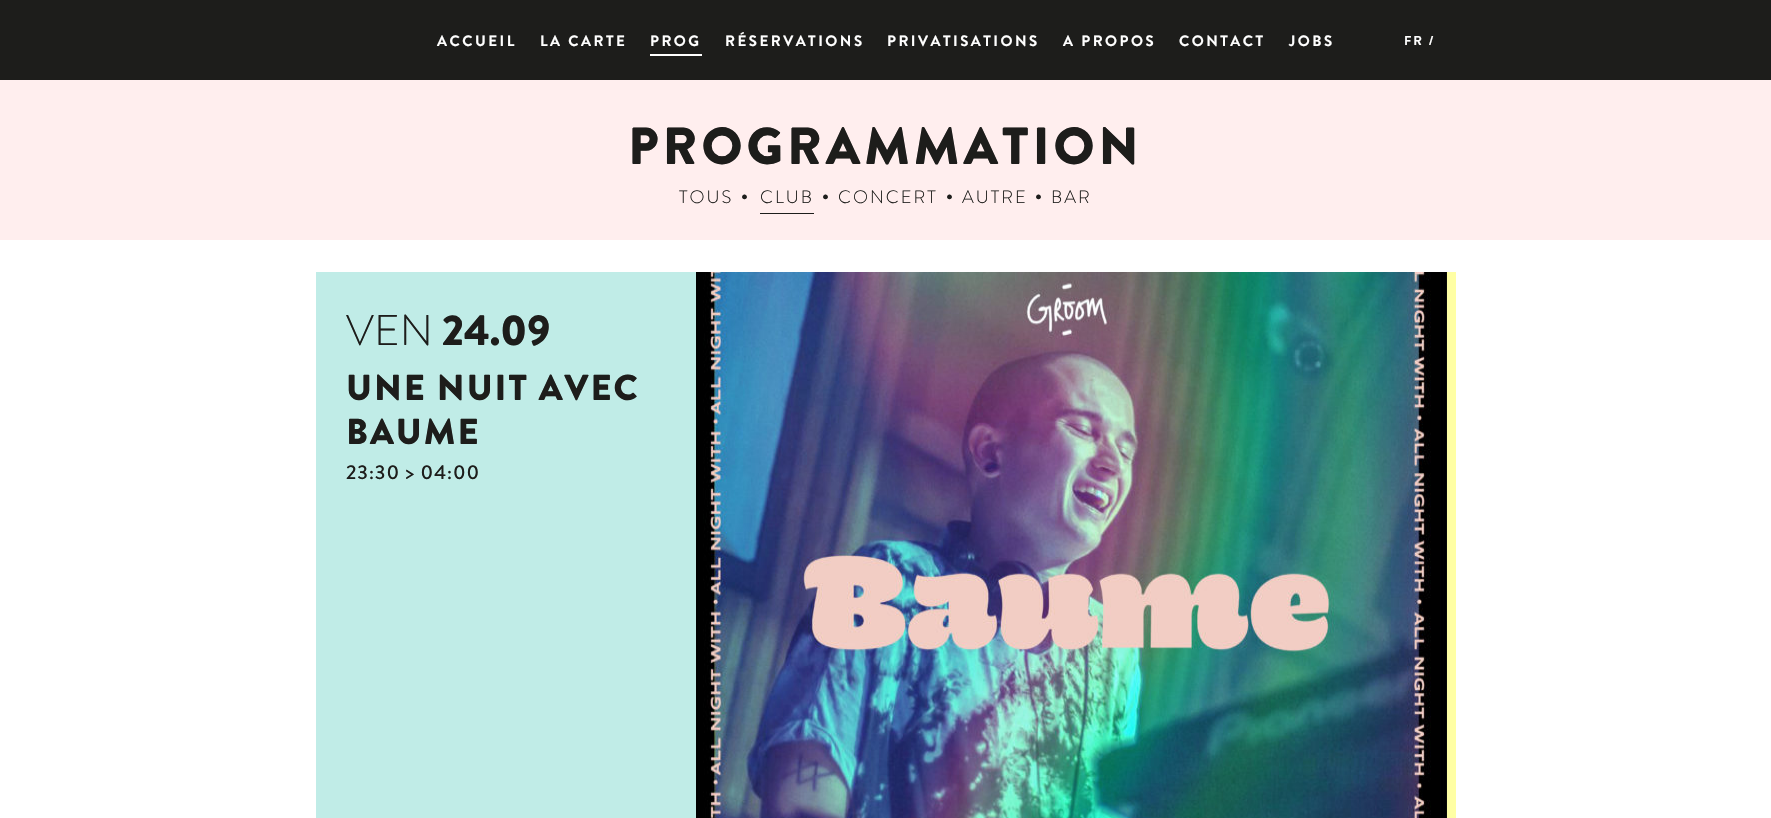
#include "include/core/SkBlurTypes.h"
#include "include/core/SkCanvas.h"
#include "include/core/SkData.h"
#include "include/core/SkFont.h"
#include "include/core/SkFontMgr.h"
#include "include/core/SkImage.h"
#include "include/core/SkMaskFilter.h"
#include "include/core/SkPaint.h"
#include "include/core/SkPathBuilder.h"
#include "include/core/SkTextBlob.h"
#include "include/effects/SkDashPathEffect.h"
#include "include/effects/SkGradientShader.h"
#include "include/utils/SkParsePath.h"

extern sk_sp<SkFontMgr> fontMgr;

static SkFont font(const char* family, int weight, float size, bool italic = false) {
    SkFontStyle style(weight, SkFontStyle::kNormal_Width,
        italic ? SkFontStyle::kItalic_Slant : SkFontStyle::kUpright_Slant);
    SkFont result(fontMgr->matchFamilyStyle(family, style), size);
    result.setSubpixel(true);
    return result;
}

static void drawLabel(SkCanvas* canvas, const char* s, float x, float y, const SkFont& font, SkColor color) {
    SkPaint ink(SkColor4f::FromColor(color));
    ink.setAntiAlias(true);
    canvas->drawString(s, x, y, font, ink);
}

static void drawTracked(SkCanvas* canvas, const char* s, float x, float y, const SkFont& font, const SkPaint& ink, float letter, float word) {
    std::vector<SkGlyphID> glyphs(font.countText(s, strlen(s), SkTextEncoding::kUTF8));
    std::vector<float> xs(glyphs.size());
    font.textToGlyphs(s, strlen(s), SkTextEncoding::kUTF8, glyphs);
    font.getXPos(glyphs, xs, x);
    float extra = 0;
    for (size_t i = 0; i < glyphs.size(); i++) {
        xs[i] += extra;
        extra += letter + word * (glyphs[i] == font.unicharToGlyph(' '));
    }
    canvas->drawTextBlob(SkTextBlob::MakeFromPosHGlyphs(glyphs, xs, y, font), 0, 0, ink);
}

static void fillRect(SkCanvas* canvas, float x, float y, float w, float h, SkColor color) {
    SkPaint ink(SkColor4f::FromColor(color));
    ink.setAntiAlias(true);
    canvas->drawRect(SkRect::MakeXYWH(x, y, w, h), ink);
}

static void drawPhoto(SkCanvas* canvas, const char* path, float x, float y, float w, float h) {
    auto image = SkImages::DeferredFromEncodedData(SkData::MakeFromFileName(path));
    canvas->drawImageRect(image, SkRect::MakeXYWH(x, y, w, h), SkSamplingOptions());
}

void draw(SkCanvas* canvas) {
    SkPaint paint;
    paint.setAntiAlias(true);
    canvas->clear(0xFFFFEEEE);
    fillRect(canvas, 0, 0, 1771, 80, 0xFF1D1D1B);
    SkFont font1 = font("Brandon Grotesque", 700, 15);
    paint.setColor(0xFFFFFFFF);
    drawTracked(canvas, "ACCUEIL", 437, 46, font1, paint, 2.5f, 0);
    drawTracked(canvas, "LA CARTE", 540, 46, font1, paint, 2.5f, 0);
    drawTracked(canvas, "PROG", 650, 46, font1, paint, 2.5f, 0);
    fillRect(canvas, 650, 54, 52, 2, 0xFFFFFFFF);
    drawTracked(canvas, "RÉSERVATIONS", 725, 46, font1, paint, 2.5f, 0);
    drawTracked(canvas, "PRIVATISATIONS", 887, 46, font1, paint, 2.5f, 0);
    drawTracked(canvas, "A PROPOS", 1063, 46, font1, paint, 2.5f, 0);
    drawTracked(canvas, "CONTACT", 1179, 46, font1, paint, 2.5f, 0);
    drawTracked(canvas, "JOBS", 1289, 46, font1, paint, 2.5f, 0);
    SkFont font2 = font("Brandon Grotesque", 700, 13);
    drawTracked(canvas, "FR /", 1404, 45, font2, paint, 2, 0);
    SkFont font3 = font("Brandon Grotesque", 900, 52);
    paint.setColor(0xFF1D1D1B);
    drawTracked(canvas, "PROGRAMMATION", 628, 164, font3, paint, 4, 0);
    SkFont font4 = font("Brandon Grotesque", 300, 18);
    drawTracked(canvas, "TOUS", 679, 203, font4, paint, 2, 0);
    SkFont font5 = font("Brandon Grotesque", 700, 18);
    drawTracked(canvas, "•", 741, 201, font5, paint, 2, 0);
    drawTracked(canvas, "CLUB", 760, 203, font4, paint, 2, 0);
    drawTracked(canvas, "•", 822, 201, font5, paint, 2, 0);
    fillRect(canvas, 760, 213, 54, 1, 0xFF1D1D1B);
    drawTracked(canvas, "CONCERT", 838, 203, font4, paint, 2, 0);
    drawTracked(canvas, "•", 946, 201, font5, paint, 2, 0);
    drawTracked(canvas, "AUTRE", 962, 203, font4, paint, 2, 0);
    drawTracked(canvas, "•", 1035, 201, font5, paint, 2, 0);
    drawTracked(canvas, "BAR", 1051, 203, font4, paint, 2, 0);
    fillRect(canvas, 0, 240, 1771, 578, 0xFFFFFFFF);
    fillRect(canvas, 1447, 272, 9, 546, 0xFFFFFFA4);
    fillRect(canvas, 316, 272, 380, 546, 0xFFC0ECE7);
    SkFont font6 = font("Brandon Grotesque", 300, 43);
    drawLabel(canvas, "VEN", 346, 345, font6, 0xFF1D1D1B);
    SkFont font7 = font("Brandon Grotesque", 900, 43);
    drawLabel(canvas, "24.09", 442, 345, font7, 0xFF1D1D1B);
    SkFont font8 = font("Brandon Grotesque", 900, 36);
    drawTracked(canvas, "UNE NUIT AVEC", 346, 400, font8, paint, 2, 0);
    drawTracked(canvas, "BAUME", 346, 444, font8, paint, 2, 0);
    SkFont font9 = font("Brandon Grotesque", 500, 20);
    drawTracked(canvas, "23:30 > 04:00", 346, 479, font9, paint, 1, 0);
    drawPhoto(canvas, "assets/img1.png", 696, 272, 751, 546);
}
